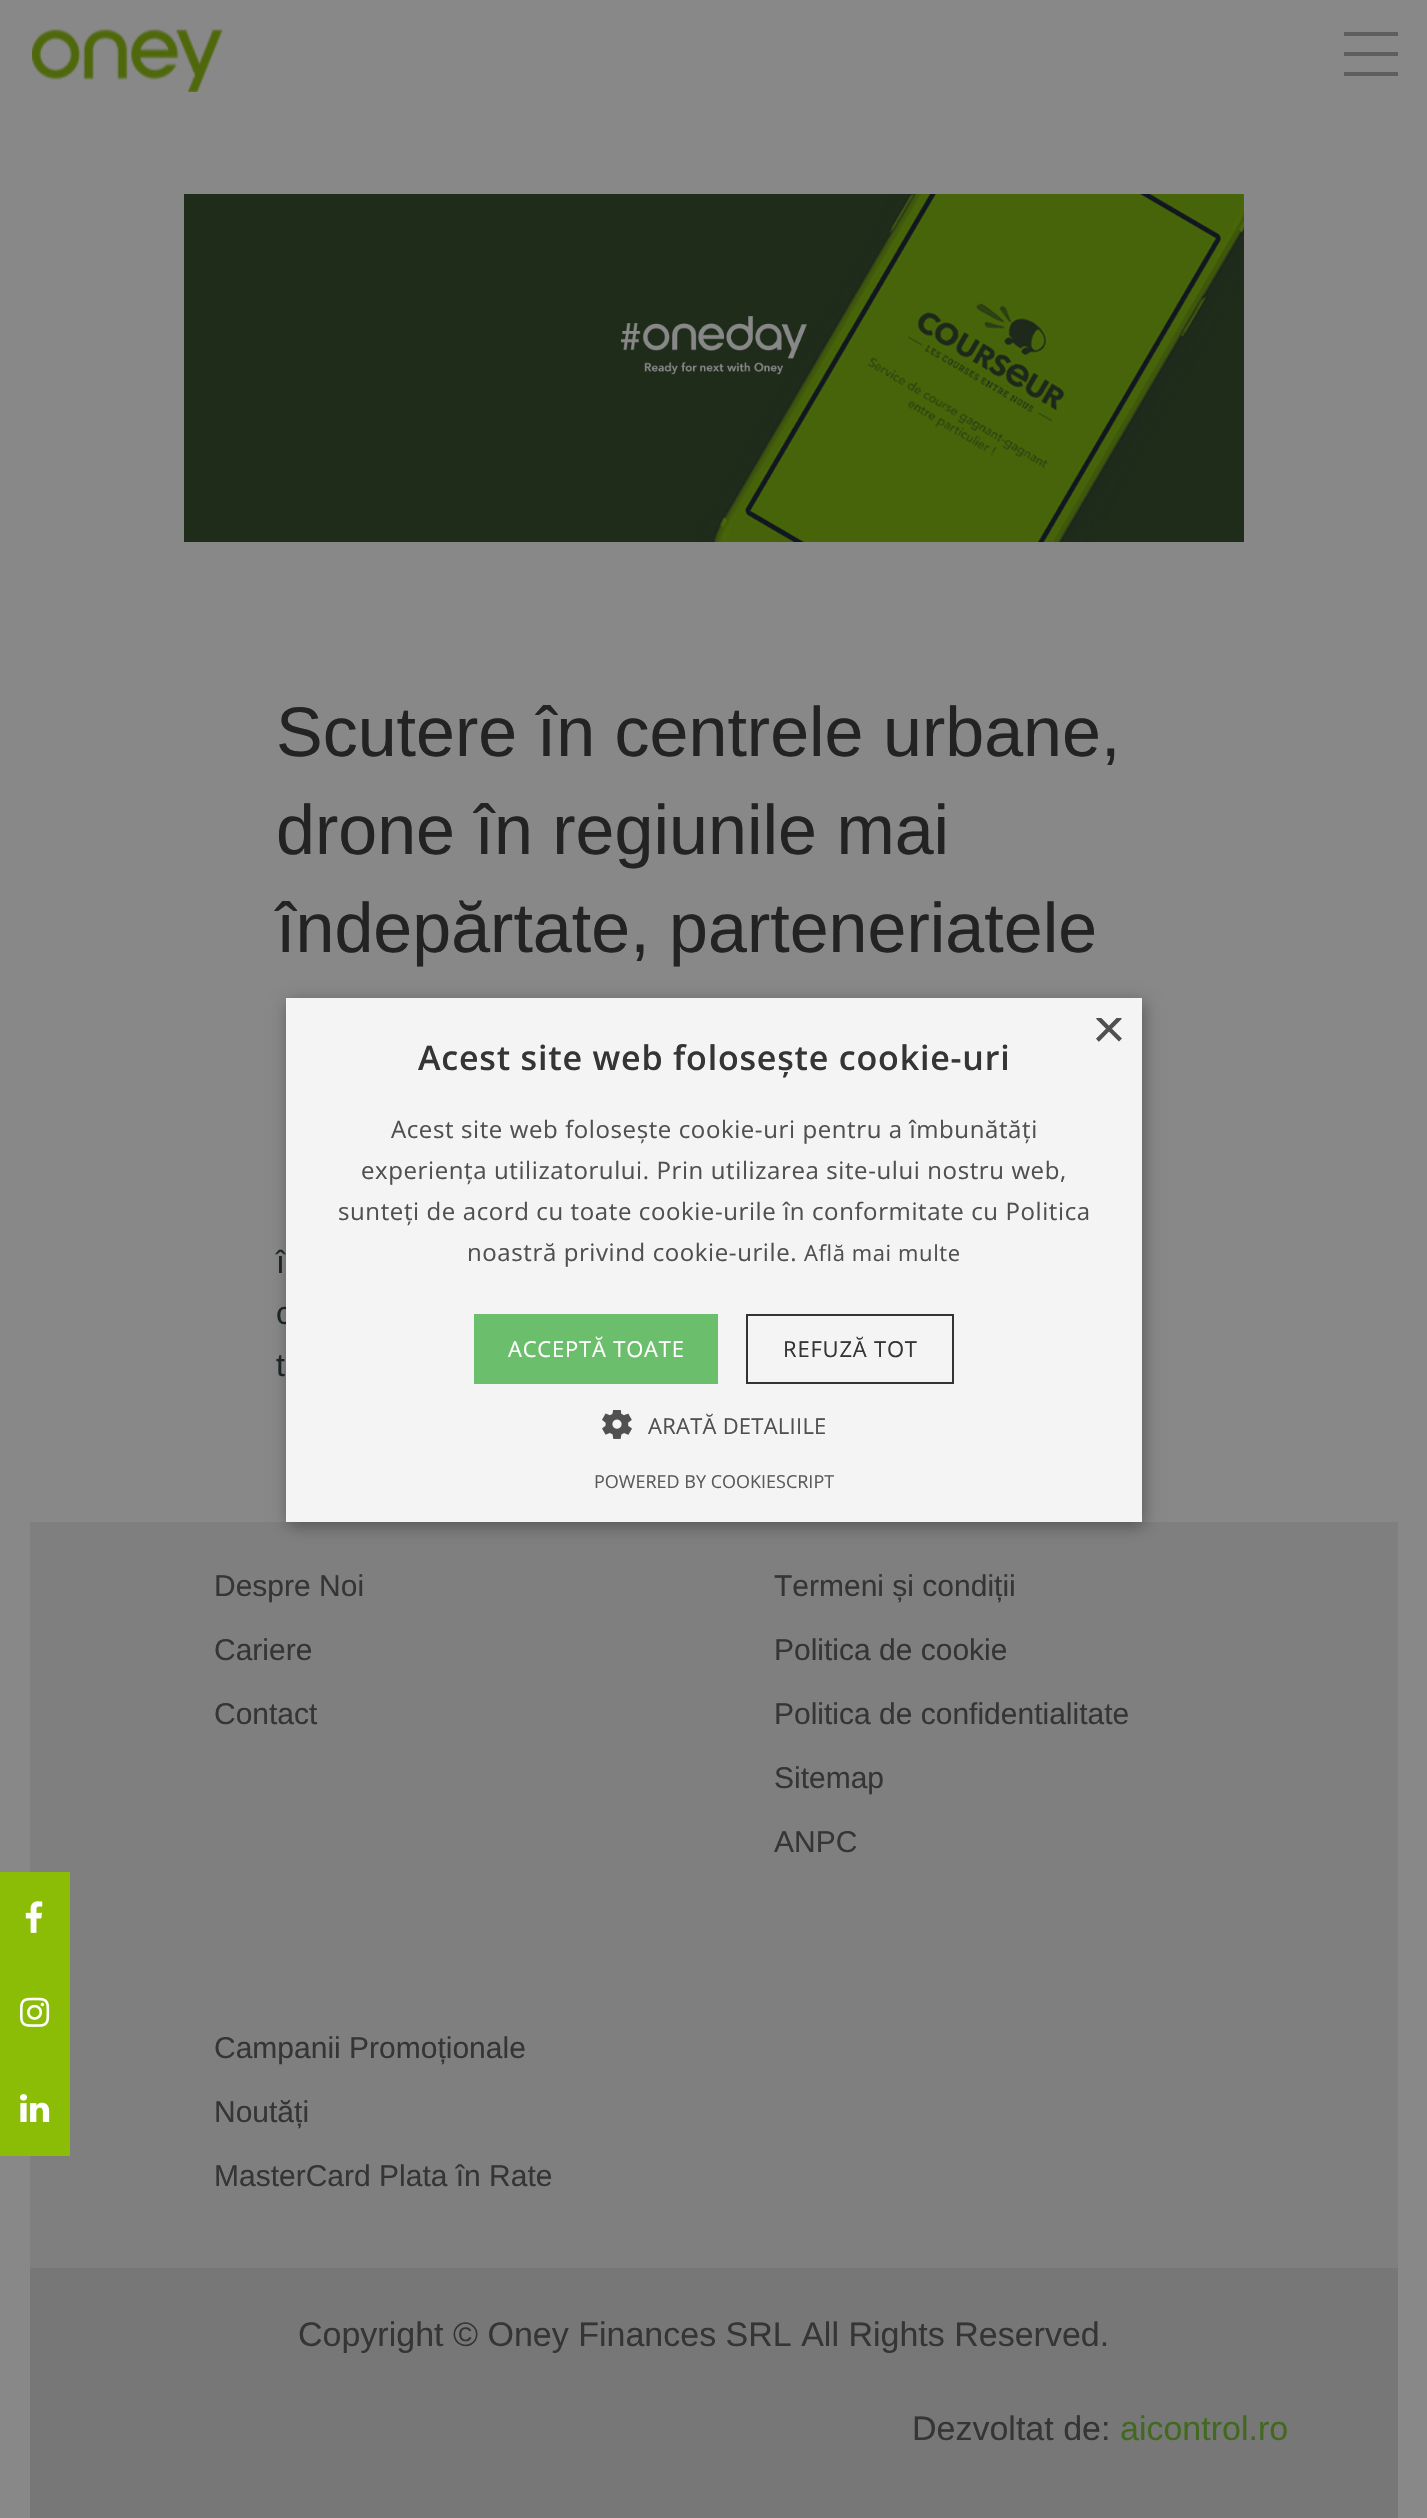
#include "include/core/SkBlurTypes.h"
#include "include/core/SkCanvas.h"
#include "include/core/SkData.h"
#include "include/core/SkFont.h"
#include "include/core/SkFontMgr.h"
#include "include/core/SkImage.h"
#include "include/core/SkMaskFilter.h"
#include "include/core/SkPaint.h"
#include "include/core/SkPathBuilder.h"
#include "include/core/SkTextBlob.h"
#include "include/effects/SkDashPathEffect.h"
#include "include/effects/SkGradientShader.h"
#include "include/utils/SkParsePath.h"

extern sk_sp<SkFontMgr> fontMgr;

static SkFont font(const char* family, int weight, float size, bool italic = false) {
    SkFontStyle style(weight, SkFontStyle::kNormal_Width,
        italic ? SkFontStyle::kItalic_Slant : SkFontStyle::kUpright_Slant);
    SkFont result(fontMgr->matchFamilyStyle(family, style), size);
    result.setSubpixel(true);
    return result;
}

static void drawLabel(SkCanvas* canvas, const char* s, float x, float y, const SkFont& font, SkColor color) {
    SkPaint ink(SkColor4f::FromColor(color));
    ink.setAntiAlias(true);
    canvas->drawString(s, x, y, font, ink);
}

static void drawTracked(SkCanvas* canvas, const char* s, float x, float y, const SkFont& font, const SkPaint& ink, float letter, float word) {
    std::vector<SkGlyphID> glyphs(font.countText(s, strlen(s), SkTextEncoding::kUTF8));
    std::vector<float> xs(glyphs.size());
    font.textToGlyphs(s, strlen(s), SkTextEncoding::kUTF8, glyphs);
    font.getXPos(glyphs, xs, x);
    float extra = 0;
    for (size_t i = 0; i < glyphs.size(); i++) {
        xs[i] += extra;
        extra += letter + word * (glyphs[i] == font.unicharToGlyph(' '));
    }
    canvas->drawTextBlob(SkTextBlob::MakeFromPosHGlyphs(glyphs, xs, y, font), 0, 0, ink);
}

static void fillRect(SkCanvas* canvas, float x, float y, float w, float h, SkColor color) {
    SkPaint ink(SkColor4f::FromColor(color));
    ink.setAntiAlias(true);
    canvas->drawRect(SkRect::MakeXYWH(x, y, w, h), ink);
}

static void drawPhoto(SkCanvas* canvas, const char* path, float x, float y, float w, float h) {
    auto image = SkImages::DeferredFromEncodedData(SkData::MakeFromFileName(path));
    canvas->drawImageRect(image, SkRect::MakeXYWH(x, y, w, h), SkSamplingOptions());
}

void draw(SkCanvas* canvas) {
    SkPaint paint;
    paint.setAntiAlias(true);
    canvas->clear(0xFF888888);
    drawPhoto(canvas, "assets/img1.png", 32, 29, 191, 63);
    fillRect(canvas, 1344, 32, 54, 4, 0xFF5E5E5E);
    fillRect(canvas, 1344, 52, 54, 4, 0xFF5E5E5E);
    fillRect(canvas, 1344, 72, 54, 4, 0xFF5E5E5E);
    drawPhoto(canvas, "assets/img2.png", 184, 194, 1060, 348);
    SkFont font1 = font("Liberation Sans", 400, 70);
    drawLabel(canvas, "Scutere în centrele urbane,", 276, 756, font1, 0xFF232323);
    drawLabel(canvas, "drone în regiunile mai", 276, 854, font1, 0xFF232323);
    drawLabel(canvas, "îndepărtate, parteneriatele", 276, 952, font1, 0xFF232323);
    SkFont font2 = font("Liberation Sans", 400, 32);
    drawLabel(canvas, "î", 276, 1273, font2, 0xFF202729);
    drawLabel(canvas, "c", 276, 1324, font2, 0xFF202729);
    drawLabel(canvas, "t", 276, 1376, font2, 0xFF202729);
    fillRect(canvas, 30, 1522, 1368, 746, 0xFF7F7F7F);
    SkFont font3 = font("Liberation Sans", 400, 30);
    drawLabel(canvas, "Despre Noi", 214, 1596, font3, 0xFF353535);
    drawLabel(canvas, "Cariere", 214, 1660, font3, 0xFF353535);
    drawLabel(canvas, "Contact", 214, 1724, font3, 0xFF353535);
    drawLabel(canvas, "Termeni și condiții", 774, 1596, font3, 0xFF353535);
    drawLabel(canvas, "Politica de cookie", 774, 1660, font3, 0xFF353535);
    drawLabel(canvas, "Politica de confidentialitate", 774, 1724, font3, 0xFF353535);
    drawLabel(canvas, "Sitemap", 774, 1788, font3, 0xFF353535);
    drawLabel(canvas, "ANPC", 774, 1852, font3, 0xFF353535);
    drawLabel(canvas, "Campanii Promoționale", 214, 2058, font3, 0xFF353535);
    drawLabel(canvas, "Noutăți", 214, 2122, font3, 0xFF353535);
    drawLabel(canvas, "MasterCard Plata în Rate", 214, 2186, font3, 0xFF353535);
    fillRect(canvas, 30, 2268, 1368, 250, 0xFF777777);
    SkFont font4 = font("Liberation Sans", 400, 34);
    drawLabel(canvas, "Copyright © Oney Finances SRL All Rights Reserved.", 298, 2346, font4, 0xFF353535);
    drawLabel(canvas, "Dezvoltat de:", 912, 2440, font4, 0xFF353535);
    drawLabel(canvas, "aicontrol.ro", 1120, 2440, font4, 0xFF42691F);
    paint.setColor(0x59000000);
    paint.setMaskFilter(SkMaskFilter::MakeBlur(kNormal_SkBlurStyle, 8));
    canvas->drawRect(SkRect::MakeXYWH(288, 1002, 856, 524), paint);
    paint.setMaskFilter(nullptr);
    fillRect(canvas, 286, 998, 856, 524, 0xFFF4F4F4);
    canvas->save();
    canvas->clipRect(SkRect::MakeXYWH(1092, 1018, 30, 30));
    SkFont font5 = font("Liberation Sans", 400, 58);
    drawLabel(canvas, "×", 1092, 1048, font5, 0xFF505050);
    canvas->restore();
    SkFont font6 = font("Open Sans", 600, 34);
    paint.setColor(0xFF353535);
    drawTracked(canvas, "Acest site web folosește cookie-uri", 418, 1070, font6, paint, 0.8f, 0);
    SkFont font7 = font("Open Sans", 400, 24);
    paint.setColor(0xFF505050);
    drawTracked(canvas, "Acest site web folosește cookie-uri pentru a îmbunătăți", 391, 1138, font7, paint, 0.6f, 0);
    drawTracked(canvas, "experiența utilizatorului. Prin utilizarea site-ului nostru web,", 361, 1179, font7, paint, 0.6f, 0);
    drawTracked(canvas, "sunteți de acord cu toate cookie-urile în conformitate cu Politica", 338, 1220, font7, paint, 0.6f, 0);
    drawTracked(canvas, "noastră privind cookie-urile.", 467, 1261, font7, paint, 0.6f, 0);
    SkFont font8 = font("Open Sans", 400, 22);
    drawTracked(canvas, "Află mai multe", 804, 1261, font8, paint, 0.6f, 0);
    fillRect(canvas, 474, 1314, 244, 70, 0xFF6BBE6B);
    paint.setColor(0xFFFFFFFF);
    drawTracked(canvas, "ACCEPTĂ TOATE", 508, 1357, font8, paint, 0.8f, 0);
    paint.setStroke(true);
    paint.setStrokeWidth(2);
    paint.setColor(0xFF333333);
    canvas->drawRect(SkRect::MakeXYWH(747, 1315, 206, 68), paint);
    paint.setStroke(false);
    paint.setColor(0xFF353535);
    drawTracked(canvas, "REFUZĂ TOT", 783, 1357, font8, paint, 0.8f, 0);
    drawPhoto(canvas, "assets/img3.png", 602, 1410, 30, 29);
    paint.setColor(0xFF505050);
    drawTracked(canvas, "ARATĂ DETALIILE", 648, 1434, font8, paint, 0.25f, 0);
    SkFont font9 = font("Open Sans", 400, 18);
    drawLabel(canvas, "POWERED BY COOKIESCRIPT", 594, 1488, font9, 0xFF5A5A5A);
    fillRect(canvas, 0, 1872, 70, 284, 0xFF8BBD06);
    drawPhoto(canvas, "assets/img4.png", 25, 1901, 18, 32);
    drawPhoto(canvas, "assets/img5.png", 20, 1997, 30, 30);
    drawPhoto(canvas, "assets/img6.png", 20, 2094, 30, 28);
}
